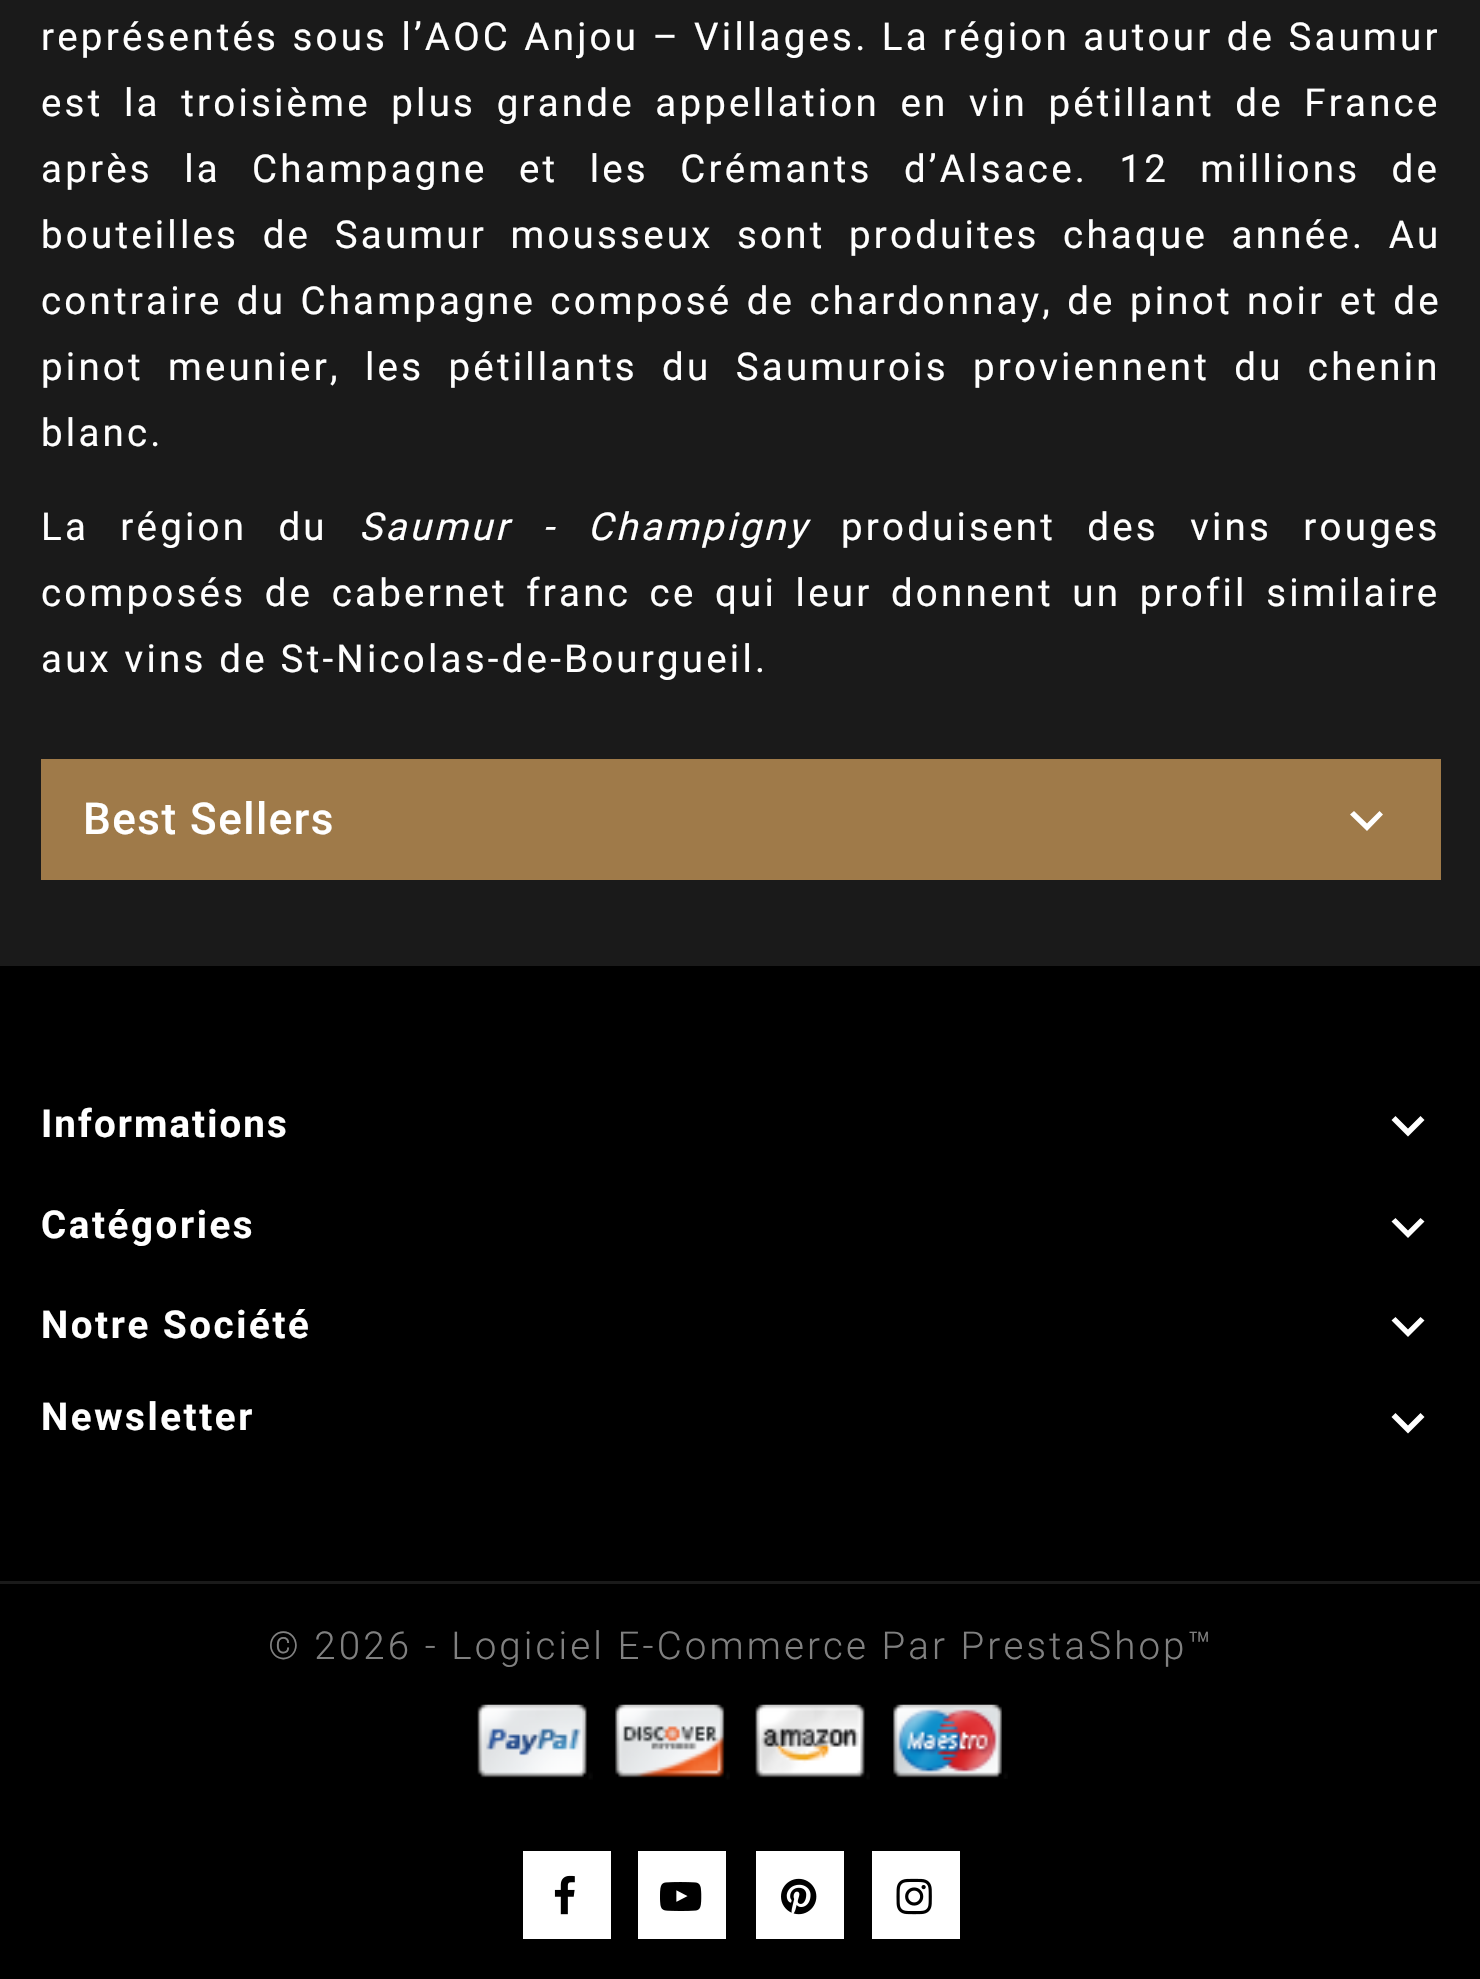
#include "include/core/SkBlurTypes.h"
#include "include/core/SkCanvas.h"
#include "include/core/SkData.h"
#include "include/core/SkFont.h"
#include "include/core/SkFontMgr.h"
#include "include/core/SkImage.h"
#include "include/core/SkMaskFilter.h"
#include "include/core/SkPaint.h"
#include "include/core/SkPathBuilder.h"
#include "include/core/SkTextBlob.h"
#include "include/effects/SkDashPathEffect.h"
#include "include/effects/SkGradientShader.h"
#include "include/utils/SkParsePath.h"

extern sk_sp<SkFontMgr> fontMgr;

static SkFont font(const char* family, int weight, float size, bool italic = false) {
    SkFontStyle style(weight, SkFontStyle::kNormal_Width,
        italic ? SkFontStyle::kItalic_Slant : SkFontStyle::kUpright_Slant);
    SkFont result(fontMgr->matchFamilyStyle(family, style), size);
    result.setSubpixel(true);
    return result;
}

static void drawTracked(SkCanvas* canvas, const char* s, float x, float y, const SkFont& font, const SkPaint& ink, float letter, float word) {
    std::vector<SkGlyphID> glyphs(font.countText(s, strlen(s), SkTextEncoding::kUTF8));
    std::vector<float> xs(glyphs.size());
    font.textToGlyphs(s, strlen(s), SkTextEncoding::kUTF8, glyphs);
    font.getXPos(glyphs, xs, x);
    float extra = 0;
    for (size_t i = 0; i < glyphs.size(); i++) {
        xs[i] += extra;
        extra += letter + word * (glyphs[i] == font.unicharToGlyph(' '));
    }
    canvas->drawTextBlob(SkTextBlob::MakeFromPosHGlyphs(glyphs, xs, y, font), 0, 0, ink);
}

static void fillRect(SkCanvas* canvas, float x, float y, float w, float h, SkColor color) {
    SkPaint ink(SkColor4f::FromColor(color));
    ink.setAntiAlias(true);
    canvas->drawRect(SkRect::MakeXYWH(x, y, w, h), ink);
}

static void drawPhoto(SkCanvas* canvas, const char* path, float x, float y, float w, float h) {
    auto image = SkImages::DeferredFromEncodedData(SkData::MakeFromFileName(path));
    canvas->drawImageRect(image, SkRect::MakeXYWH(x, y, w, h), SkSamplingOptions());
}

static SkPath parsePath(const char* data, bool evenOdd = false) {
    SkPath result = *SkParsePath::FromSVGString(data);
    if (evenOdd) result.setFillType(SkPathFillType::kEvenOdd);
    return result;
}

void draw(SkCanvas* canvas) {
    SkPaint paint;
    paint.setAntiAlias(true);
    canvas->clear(0xFF1A1A1A);
    SkFont font1 = font("Roboto", 400, 38.5f);
    paint.setColor(0xFFFFFFFF);
    drawTracked(canvas, "représentés sous l’AOC Anjou – Villages. La région autour de Saumur", 41, 50, font1, paint, 3.2f, 0.5f);
    drawTracked(canvas, "est la troisième plus grande appellation en vin pétillant de France", 41, 116, font1, paint, 3.2f, 7.75f);
    drawTracked(canvas, "après la Champagne et les Crémants d’Alsace. 12 millions de", 41, 182, font1, paint, 3.2f, 18.5f);
    drawTracked(canvas, "bouteilles de Saumur mousseux sont produites chaque année. Au", 41, 248, font1, paint, 3.2f, 10.75f);
    drawTracked(canvas, "contraire du Champagne composé de chardonnay, de pinot noir et de", 41, 314, font1, paint, 3.2f, 1.5f);
    drawTracked(canvas, "pinot meunier, les pétillants du Saumurois proviennent du chenin", 41, 380, font1, paint, 3.2f, 11.5f);
    drawTracked(canvas, "blanc.", 41, 446, font1, paint, 3.2f, 0);
    drawTracked(canvas, "La région du", 41, 540, font1, paint, 3.2f, 18.5f);
    SkFont font2 = font("Roboto", 400, 38.5f, true);
    drawTracked(canvas, "Saumur - Champigny", 359, 540, font2, paint, 3.2f, 18.5f);
    drawTracked(canvas, "produisent des vins rouges", 841, 540, font1, paint, 3.2f, 18.5f);
    drawTracked(canvas, "composés de cabernet franc ce qui leur donnent un profil similaire", 41, 606, font1, paint, 3.2f, 5.75f);
    drawTracked(canvas, "aux vins de St-Nicolas-de-Bourgueil.", 41, 672, font1, paint, 3.2f, 0);
    fillRect(canvas, 41, 759, 1400, 121, 0xFF9F7A49);
    SkFont font3 = font("Roboto", 500, 44);
    drawTracked(canvas, "Best Sellers", 83, 834, font3, paint, 1.5f, 0);
    canvas->drawPath(parsePath("M1354 811L1367 823.5L1379.5 811L1383 814.5L1367 831L1350 814.5Z"), paint);
    fillRect(canvas, 0, 966, 1480, 1013, 0xFF000000);
    SkFont font4 = font("Roboto", 700, 38.5f);
    drawTracked(canvas, "Informations", 41, 1137, font4, paint, 2.1f, 0);
    canvas->drawPath(parsePath("M1395.5 1116L1408 1128.5L1420.5 1116L1424.5 1120L1408 1136.5L1391.5 1120Z"), paint);
    drawTracked(canvas, "Catégories", 41, 1238, font4, paint, 2.6f, 0);
    canvas->drawPath(parsePath("M1395.5 1218L1408 1230.5L1420.5 1218L1424.5 1221.5L1408 1238L1391.5 1221.5Z"), paint);
    drawTracked(canvas, "Notre Société", 41, 1338, font4, paint, 2.6f, 0);
    canvas->drawPath(parsePath("M1395.5 1317L1408 1329.5L1420.5 1317L1424.5 1320.5L1408 1337L1391.5 1320.5Z"), paint);
    drawTracked(canvas, "Newsletter", 41, 1430, font4, paint, 2.6f, 0);
    canvas->drawPath(parsePath("M1395.5 1413L1408 1425.5L1420.5 1413L1424.5 1417L1408 1433.5L1391.5 1417Z"), paint);
    fillRect(canvas, 0, 1581, 1480, 3, 0xFF1A1A1A);
    SkFont font5 = font("Roboto", 300, 38.5f);
    paint.setColor(0xFF808080);
    drawTracked(canvas, "© 2026 - Logiciel E-Commerce Par PrestaShop™", 268, 1659, font5, paint, 3.1f, 0);
    drawPhoto(canvas, "assets/img1.png", 477, 1704, 116, 76);
    drawPhoto(canvas, "assets/img2.png", 615, 1704, 115, 76);
    drawPhoto(canvas, "assets/img3.png", 755, 1704, 115, 76);
    drawPhoto(canvas, "assets/img4.png", 893, 1704, 115, 75);
    fillRect(canvas, 523, 1851, 88, 88, 0xFFFFFFFF);
    drawPhoto(canvas, "assets/img5.png", 554, 1875, 21, 40);
    fillRect(canvas, 638, 1851, 88, 88, 0xFFFFFFFF);
    drawPhoto(canvas, "assets/img6.png", 660, 1882, 42, 29);
    fillRect(canvas, 756, 1851, 88, 88, 0xFFFFFFFF);
    drawPhoto(canvas, "assets/img7.png", 781, 1878, 36, 37);
    fillRect(canvas, 872, 1851, 88, 88, 0xFFFFFFFF);
    drawPhoto(canvas, "assets/img8.png", 896, 1878, 36, 37);
}
